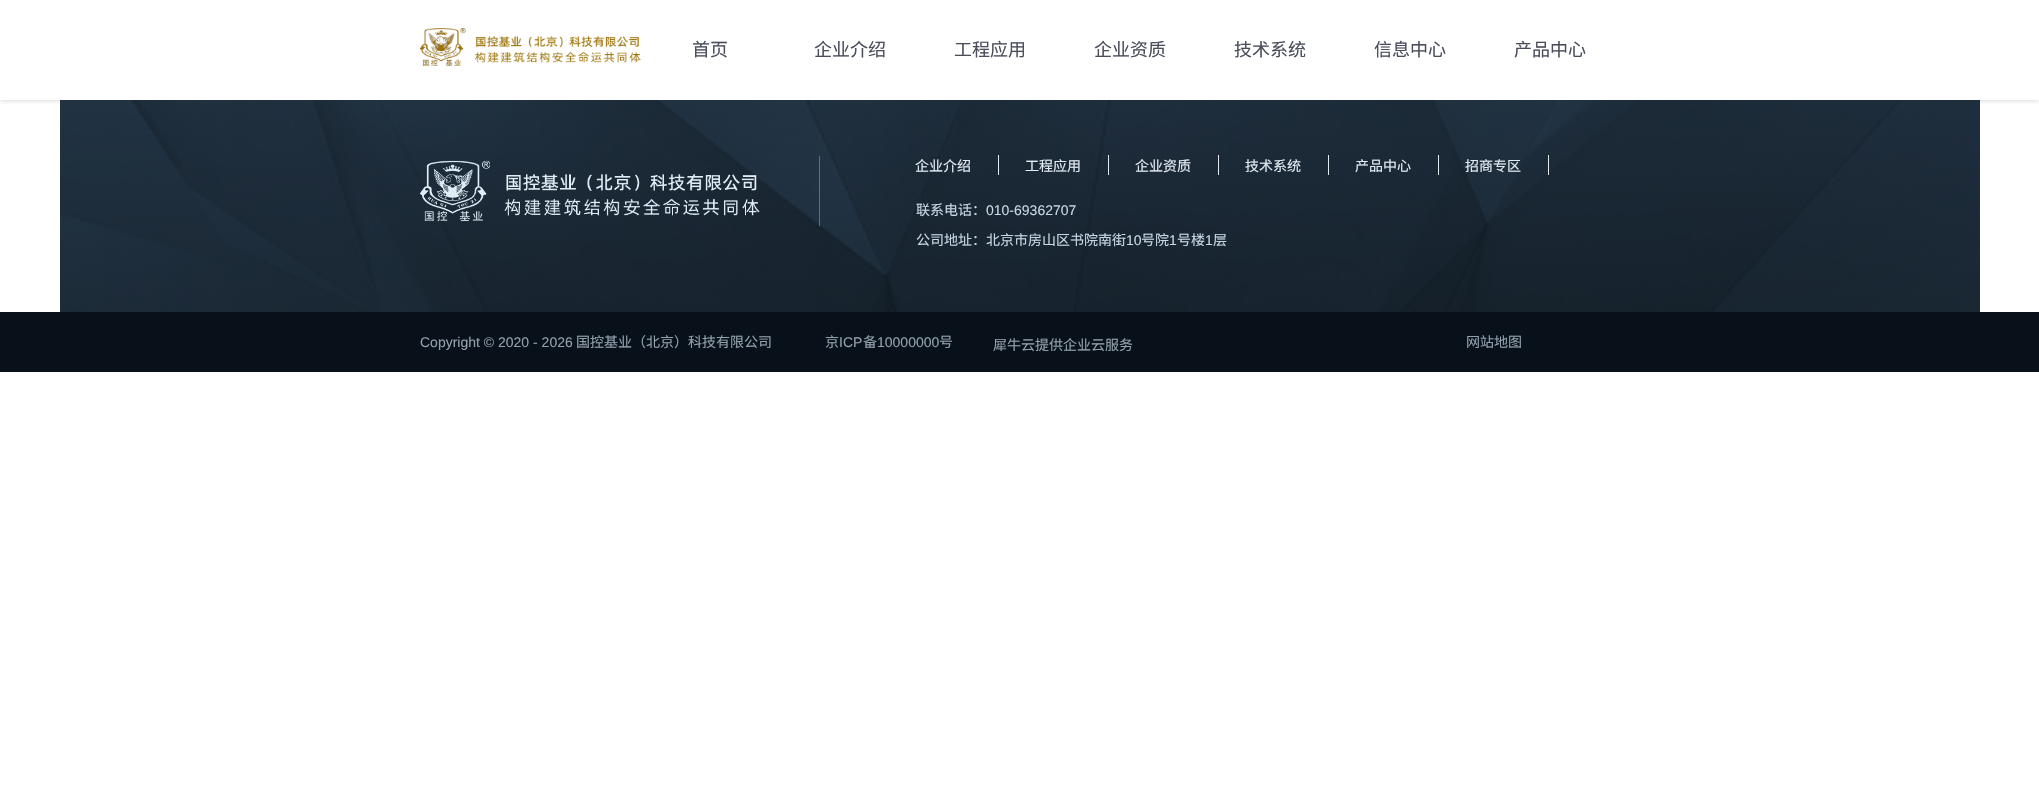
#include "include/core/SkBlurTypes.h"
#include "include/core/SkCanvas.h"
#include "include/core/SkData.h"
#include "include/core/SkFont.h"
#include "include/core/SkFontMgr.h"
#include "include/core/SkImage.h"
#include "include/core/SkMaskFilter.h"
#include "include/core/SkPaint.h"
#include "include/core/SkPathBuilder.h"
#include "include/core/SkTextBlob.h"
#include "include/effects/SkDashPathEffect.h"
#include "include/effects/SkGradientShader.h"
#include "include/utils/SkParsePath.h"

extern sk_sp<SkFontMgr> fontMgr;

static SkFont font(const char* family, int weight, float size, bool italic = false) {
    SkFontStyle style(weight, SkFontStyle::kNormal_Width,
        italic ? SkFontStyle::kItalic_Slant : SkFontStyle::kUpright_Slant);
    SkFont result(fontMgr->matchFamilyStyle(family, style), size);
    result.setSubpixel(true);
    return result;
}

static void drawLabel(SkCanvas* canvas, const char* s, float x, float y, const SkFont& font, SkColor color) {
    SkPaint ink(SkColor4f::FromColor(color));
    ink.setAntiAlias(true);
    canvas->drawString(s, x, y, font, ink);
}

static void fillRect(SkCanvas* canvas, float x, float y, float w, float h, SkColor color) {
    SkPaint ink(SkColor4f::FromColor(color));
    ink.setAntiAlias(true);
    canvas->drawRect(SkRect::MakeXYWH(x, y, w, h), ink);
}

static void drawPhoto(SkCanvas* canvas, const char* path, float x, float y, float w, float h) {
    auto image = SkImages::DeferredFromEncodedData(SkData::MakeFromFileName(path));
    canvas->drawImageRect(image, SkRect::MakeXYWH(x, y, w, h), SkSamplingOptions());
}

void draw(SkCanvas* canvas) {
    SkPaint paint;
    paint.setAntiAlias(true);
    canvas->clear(0xFFFFFFFF);
    canvas->save();
    canvas->clipRect(SkRect::MakeXYWH(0, 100, 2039, 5));
    paint.setColor(0xFFCDCDCD);
    paint.setMaskFilter(SkMaskFilter::MakeBlur(kNormal_SkBlurStyle, 2.5f));
    canvas->drawRect(SkRect::MakeXYWH(0, 0, 2039, 100), paint);
    paint.setMaskFilter(nullptr);
    canvas->restore();
    drawPhoto(canvas, "assets/img1.png", 420, 28, 221, 38);
    SkFont font1 = font("Noto Sans CJK SC", 400, 18);
    drawLabel(canvas, "首页", 692, 56, font1, 0xFF4A4D5C);
    drawLabel(canvas, "企业介绍", 814, 56, font1, 0xFF4A4D5C);
    drawLabel(canvas, "工程应用", 954, 56, font1, 0xFF4A4D5C);
    drawLabel(canvas, "企业资质", 1094, 56, font1, 0xFF4A4D5C);
    drawLabel(canvas, "技术系统", 1234, 56, font1, 0xFF4A4D5C);
    drawLabel(canvas, "信息中心", 1374, 56, font1, 0xFF4A4D5C);
    drawLabel(canvas, "产品中心", 1514, 56, font1, 0xFF4A4D5C);
    drawPhoto(canvas, "assets/img2.png", 60, 100, 1920, 212);
    fillRect(canvas, 819, 156, 1, 70, 0xFF636F7A);
    drawPhoto(canvas, "assets/img3.png", 420, 160, 340, 62);
    fillRect(canvas, 998, 155, 1, 20, 0xFFE2EAF2);
    SkFont font2 = font("Noto Sans CJK SC", 400, 14);
    drawLabel(canvas, "企业介绍", 915, 171, font2, 0xFFE2EAF2);
    fillRect(canvas, 1108, 155, 1, 20, 0xFFE2EAF2);
    drawLabel(canvas, "工程应用", 1025, 171, font2, 0xFFE2EAF2);
    fillRect(canvas, 1218, 155, 1, 20, 0xFFE2EAF2);
    drawLabel(canvas, "企业资质", 1135, 171, font2, 0xFFE2EAF2);
    fillRect(canvas, 1328, 155, 1, 20, 0xFFE2EAF2);
    drawLabel(canvas, "技术系统", 1245, 171, font2, 0xFFE2EAF2);
    fillRect(canvas, 1438, 155, 1, 20, 0xFFE2EAF2);
    drawLabel(canvas, "产品中心", 1355, 171, font2, 0xFFE2EAF2);
    fillRect(canvas, 1548, 155, 1, 20, 0xFFE2EAF2);
    drawLabel(canvas, "招商专区", 1465, 171, font2, 0xFFE2EAF2);
    drawLabel(canvas, "联系电话：", 916, 215, font2, 0xFFC8D7E5);
    SkFont font3 = font("Liberation Sans", 400, 14);
    drawLabel(canvas, "010-69362707", 986, 215, font3, 0xFFC8D7E5);
    drawLabel(canvas, "公司地址：北京市房山区书院南街", 916, 245, font2, 0xFFC8D7E5);
    drawLabel(canvas, "10", 1126, 245, font3, 0xFFC8D7E5);
    drawLabel(canvas, "号院", 1141, 245, font2, 0xFFC8D7E5);
    drawLabel(canvas, "1", 1169, 245, font3, 0xFFC8D7E5);
    drawLabel(canvas, "号楼", 1177, 245, font2, 0xFFC8D7E5);
    drawLabel(canvas, "1", 1205, 245, font3, 0xFFC8D7E5);
    drawLabel(canvas, "层", 1213, 245, font2, 0xFFC8D7E5);
    fillRect(canvas, 0, 312, 2039, 60, 0xFF08111A);
    drawLabel(canvas, "Copyright © 2020 - 2026", 420, 347, font3, 0xFF92A1AE);
    drawLabel(canvas, "国控基业（北京）科技有限公司", 576, 347, font2, 0xFF92A1AE);
    drawLabel(canvas, "京", 825, 347, font2, 0xFF92A1AE);
    drawLabel(canvas, "ICP", 839, 347, font3, 0xFF92A1AE);
    drawLabel(canvas, "备", 863, 347, font2, 0xFF92A1AE);
    drawLabel(canvas, "10000000", 877, 347, font3, 0xFF92A1AE);
    drawLabel(canvas, "号", 939, 347, font2, 0xFF92A1AE);
    drawLabel(canvas, "犀牛云提供企业云服务", 993, 350, font2, 0xFF92A1AE);
    drawLabel(canvas, "网站地图", 1466, 347, font2, 0xFF92A1AE);
}
